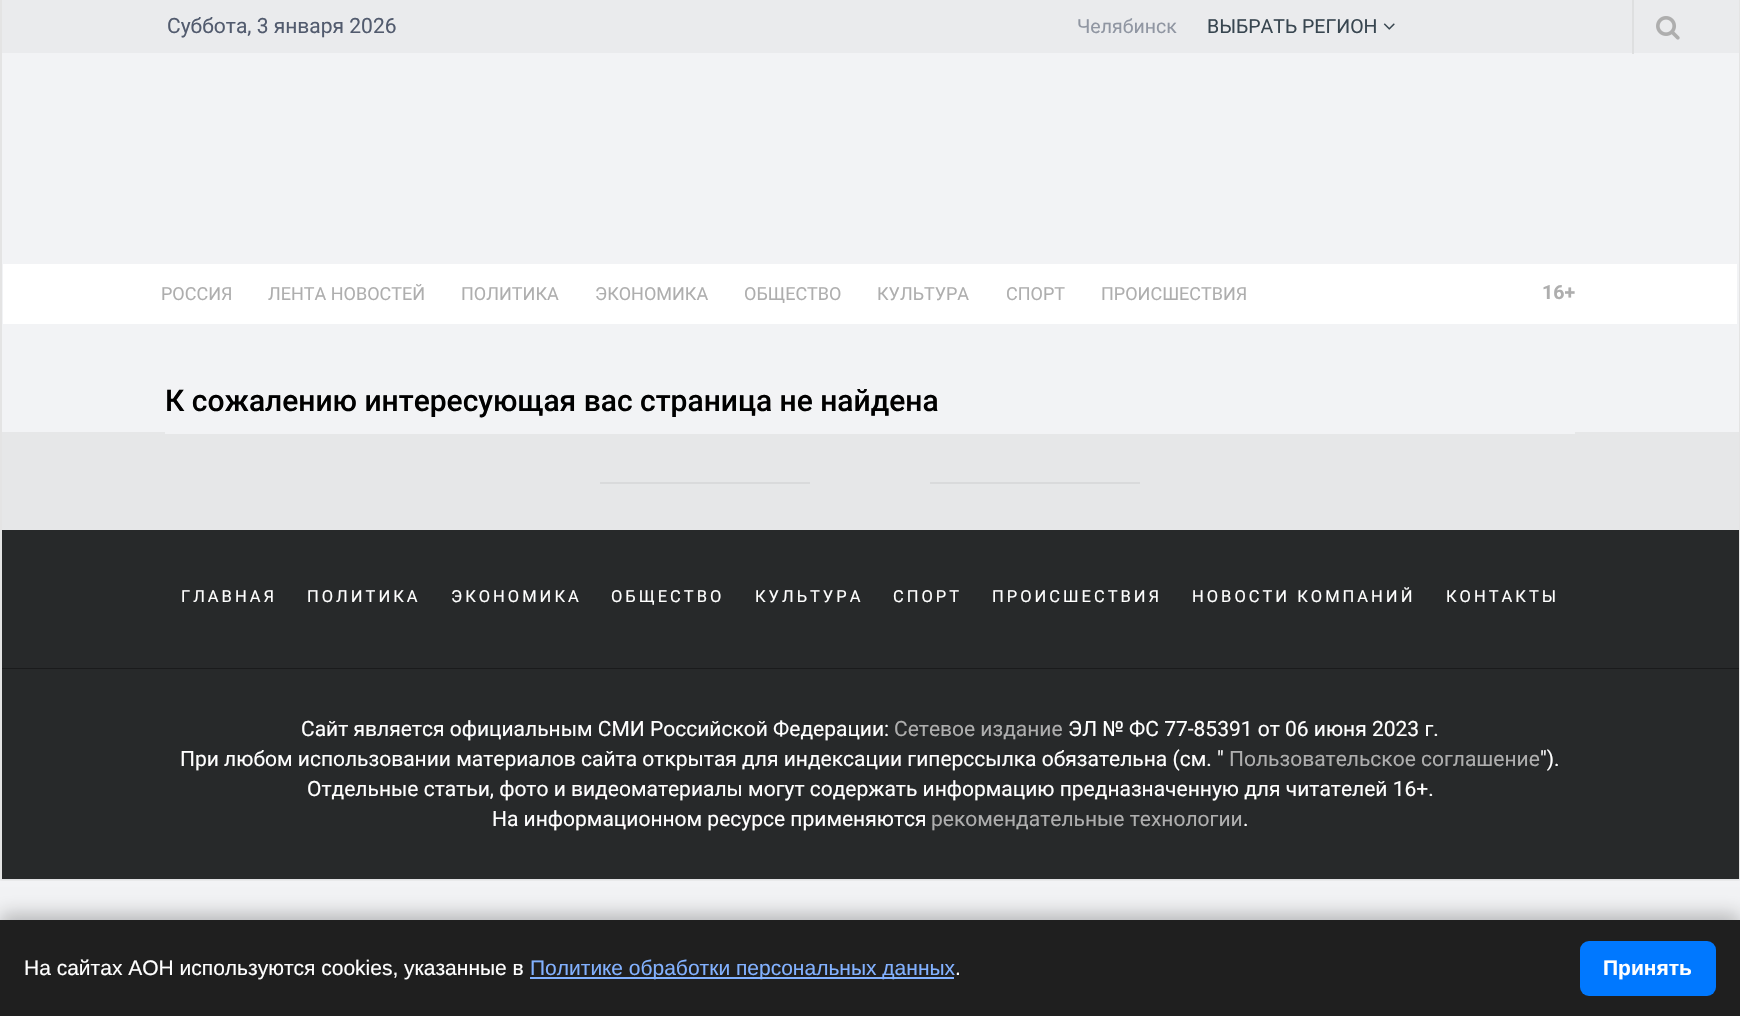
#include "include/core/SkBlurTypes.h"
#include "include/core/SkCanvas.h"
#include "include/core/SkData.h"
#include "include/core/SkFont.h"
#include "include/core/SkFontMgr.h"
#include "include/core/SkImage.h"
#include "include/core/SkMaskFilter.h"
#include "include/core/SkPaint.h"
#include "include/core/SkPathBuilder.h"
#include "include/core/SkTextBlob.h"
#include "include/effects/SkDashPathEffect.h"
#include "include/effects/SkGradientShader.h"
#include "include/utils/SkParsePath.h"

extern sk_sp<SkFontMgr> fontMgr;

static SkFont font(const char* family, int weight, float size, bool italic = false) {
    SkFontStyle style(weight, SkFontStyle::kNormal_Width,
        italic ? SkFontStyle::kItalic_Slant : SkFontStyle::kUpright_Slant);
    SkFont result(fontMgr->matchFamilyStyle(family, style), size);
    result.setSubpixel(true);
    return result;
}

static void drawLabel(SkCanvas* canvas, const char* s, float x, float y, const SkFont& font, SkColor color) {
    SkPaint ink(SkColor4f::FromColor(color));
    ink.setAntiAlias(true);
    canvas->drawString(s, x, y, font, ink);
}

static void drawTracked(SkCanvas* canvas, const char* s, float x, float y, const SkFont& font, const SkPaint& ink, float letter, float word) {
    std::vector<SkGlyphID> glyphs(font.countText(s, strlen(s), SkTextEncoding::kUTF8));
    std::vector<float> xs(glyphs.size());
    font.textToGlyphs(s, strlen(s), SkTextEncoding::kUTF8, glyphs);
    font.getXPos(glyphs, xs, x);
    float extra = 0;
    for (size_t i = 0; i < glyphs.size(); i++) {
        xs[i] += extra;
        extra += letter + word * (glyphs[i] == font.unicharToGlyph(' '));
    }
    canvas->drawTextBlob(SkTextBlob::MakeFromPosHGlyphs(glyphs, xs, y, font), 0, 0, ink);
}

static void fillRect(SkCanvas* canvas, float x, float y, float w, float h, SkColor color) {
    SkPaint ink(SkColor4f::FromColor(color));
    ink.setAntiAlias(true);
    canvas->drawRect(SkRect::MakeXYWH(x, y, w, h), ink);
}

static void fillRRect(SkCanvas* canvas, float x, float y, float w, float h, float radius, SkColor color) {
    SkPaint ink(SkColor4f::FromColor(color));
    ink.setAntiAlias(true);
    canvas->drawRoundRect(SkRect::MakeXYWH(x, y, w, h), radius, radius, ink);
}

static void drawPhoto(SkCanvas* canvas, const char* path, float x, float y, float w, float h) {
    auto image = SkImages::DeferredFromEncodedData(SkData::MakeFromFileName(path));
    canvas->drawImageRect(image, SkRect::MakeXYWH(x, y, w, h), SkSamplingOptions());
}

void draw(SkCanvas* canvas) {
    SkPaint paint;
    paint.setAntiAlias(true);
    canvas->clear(0xFFF2F3F5);
    canvas->save();
    canvas->clipRect(SkRect::MakeXYWH(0, 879, 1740, 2));
    paint.setColor(0x2E000000);
    paint.setMaskFilter(SkMaskFilter::MakeBlur(kNormal_SkBlurStyle, 2));
    canvas->drawRect(SkRect::MakeXYWH(0, 0, 1740, 879), paint);
    paint.setMaskFilter(nullptr);
    canvas->restore();
    fillRect(canvas, 1739, 0, 1, 879, 0xFFE4E4E4);
    fillRect(canvas, 0, 0, 2, 879, 0xFFE4E4E4);
    fillRect(canvas, 2, 0, 1737, 53, 0xFFEAEBED);
    SkFont font1 = font("Roboto", 400, 21);
    drawLabel(canvas, "Суббота, 3 января 2026", 167, 33, font1, 0xFF525B6E);
    SkFont font2 = font("Roboto", 400, 19.5f);
    drawLabel(canvas, "Челябинск", 1077, 33, font2, 0xFF9096A2);
    drawLabel(canvas, "ВЫБРАТЬ РЕГИОН", 1207, 33, font2, 0xFF384650);
    drawPhoto(canvas, "assets/img1.png", 1383, 23, 12, 7);
    fillRect(canvas, 1632, 0, 2, 54, 0xFFDEDFE0);
    drawPhoto(canvas, "assets/img2.png", 1656, 16, 24, 24);
    fillRect(canvas, 3, 264, 1734, 60, 0xFFFFFFFF);
    SkFont font3 = font("Roboto", 400, 18);
    drawLabel(canvas, "РОССИЯ", 161, 300, font3, 0xFFAEAEAE);
    drawLabel(canvas, "ЛЕНТА НОВОСТЕЙ", 268, 300, font3, 0xFFAEAEAE);
    drawLabel(canvas, "ПОЛИТИКА", 461, 300, font3, 0xFFAEAEAE);
    drawLabel(canvas, "ЭКОНОМИКА", 595, 300, font3, 0xFFAEAEAE);
    drawLabel(canvas, "ОБЩЕСТВО", 744, 300, font3, 0xFFAEAEAE);
    drawLabel(canvas, "КУЛЬТУРА", 877, 300, font3, 0xFFAEAEAE);
    drawLabel(canvas, "СПОРТ", 1006, 300, font3, 0xFFAEAEAE);
    drawLabel(canvas, "ПРОИСШЕСТВИЯ", 1101, 300, font3, 0xFFAEAEAE);
    SkFont font4 = font("Roboto", 700, 19.5f);
    drawLabel(canvas, "16+", 1542, 299, font4, 0xFFAEAEAE);
    SkFont font5 = font("Roboto", 500, 30);
    drawLabel(canvas, "К сожалению интересующая вас страница не найдена", 165, 411, font5, 0xFF000000);
    fillRect(canvas, 2, 432, 1737, 98, 0xFFE6E7E8);
    fillRect(canvas, 165, 432, 1410, 2, 0xFFF2F3F5);
    fillRect(canvas, 600, 482, 210, 2, 0xFFD9DADB);
    fillRect(canvas, 930, 482, 210, 2, 0xFFD9DADB);
    fillRect(canvas, 2, 530, 1737, 138, 0xFF27292A);
    fillRect(canvas, 2, 668, 1737, 1, 0xFF1A1B1C);
    SkFont font6 = font("Roboto", 400, 16.5f);
    paint.setColor(0xFFFFFFFF);
    drawTracked(canvas, "ГЛАВНАЯ", 181, 602, font6, paint, 3, 0);
    drawTracked(canvas, "ПОЛИТИКА", 307, 602, font6, paint, 3, 0);
    drawTracked(canvas, "ЭКОНОМИКА", 451, 602, font6, paint, 3, 0);
    drawTracked(canvas, "ОБЩЕСТВО", 611, 602, font6, paint, 3, 0);
    drawTracked(canvas, "КУЛЬТУРА", 755, 602, font6, paint, 3, 0);
    drawTracked(canvas, "СПОРТ", 893, 602, font6, paint, 3, 0);
    drawTracked(canvas, "ПРОИСШЕСТВИЯ", 992, 602, font6, paint, 3, 0);
    drawTracked(canvas, "НОВОСТИ КОМПАНИЙ", 1192, 602, font6, paint, 3, 0);
    drawTracked(canvas, "КОНТАКТЫ", 1446, 602, font6, paint, 3, 0);
    fillRect(canvas, 2, 669, 1737, 210, 0xFF27292A);
    drawLabel(canvas, "Сайт является официальным СМИ Российской Федерации:", 301, 736, font1, 0xFFFFFFFF);
    drawLabel(canvas, "Сетевое издание", 894, 736, font1, 0xFFAEAEAE);
    drawLabel(canvas, "ЭЛ № ФС 77-85391 от 06 июня 2023 г.", 1068, 736, font1, 0xFFFFFFFF);
    drawLabel(canvas, "При любом использовании материалов сайта открытая для индексации гиперссылка обязательна (см. \"", 180, 766, font1, 0xFFFFFFFF);
    drawLabel(canvas, "Пользовательское соглашение", 1229, 766, font1, 0xFFAEAEAE);
    drawLabel(canvas, "\").", 1540, 766, font1, 0xFFFFFFFF);
    drawLabel(canvas, "Отдельные статьи, фото и видеоматериалы могут содержать информацию предназначенную для читателей 16+.", 307, 796, font1, 0xFFFFFFFF);
    drawLabel(canvas, "На информационном ресурсе применяются", 492, 826, font1, 0xFFFFFFFF);
    drawLabel(canvas, "рекомендательные технологии", 931, 826, font1, 0xFFAEAEAE);
    drawLabel(canvas, ".", 1243, 826, font1, 0xFFFFFFFF);
    paint.setColor(0x40000000);
    paint.setMaskFilter(SkMaskFilter::MakeBlur(kNormal_SkBlurStyle, 9));
    canvas->drawRect(SkRect::MakeXYWH(0, 914, 1740, 97), paint);
    paint.setMaskFilter(nullptr);
    fillRect(canvas, 0, 920, 1740, 96, 0xFF1F1F1F);
    SkFont font7 = font("Liberation Sans", 400, 21);
    drawLabel(canvas, "На сайтах АОН используются cookies, указанные в", 24, 975, font7, 0xFFFFFFFF);
    fillRect(canvas, 530, 977, 424, 2, 0xFF82B1FF);
    drawLabel(canvas, "Политике обработки персональных данных", 530, 975, font7, 0xFF82B1FF);
    drawLabel(canvas, ".", 955, 975, font7, 0xFFFFFFFF);
    fillRRect(canvas, 1580, 941, 136, 55, 9, 0xFF0078FF);
    SkFont font8 = font("Liberation Sans", 700, 21);
    drawLabel(canvas, "Принять", 1603, 975, font8, 0xFFFFFFFF);
}
